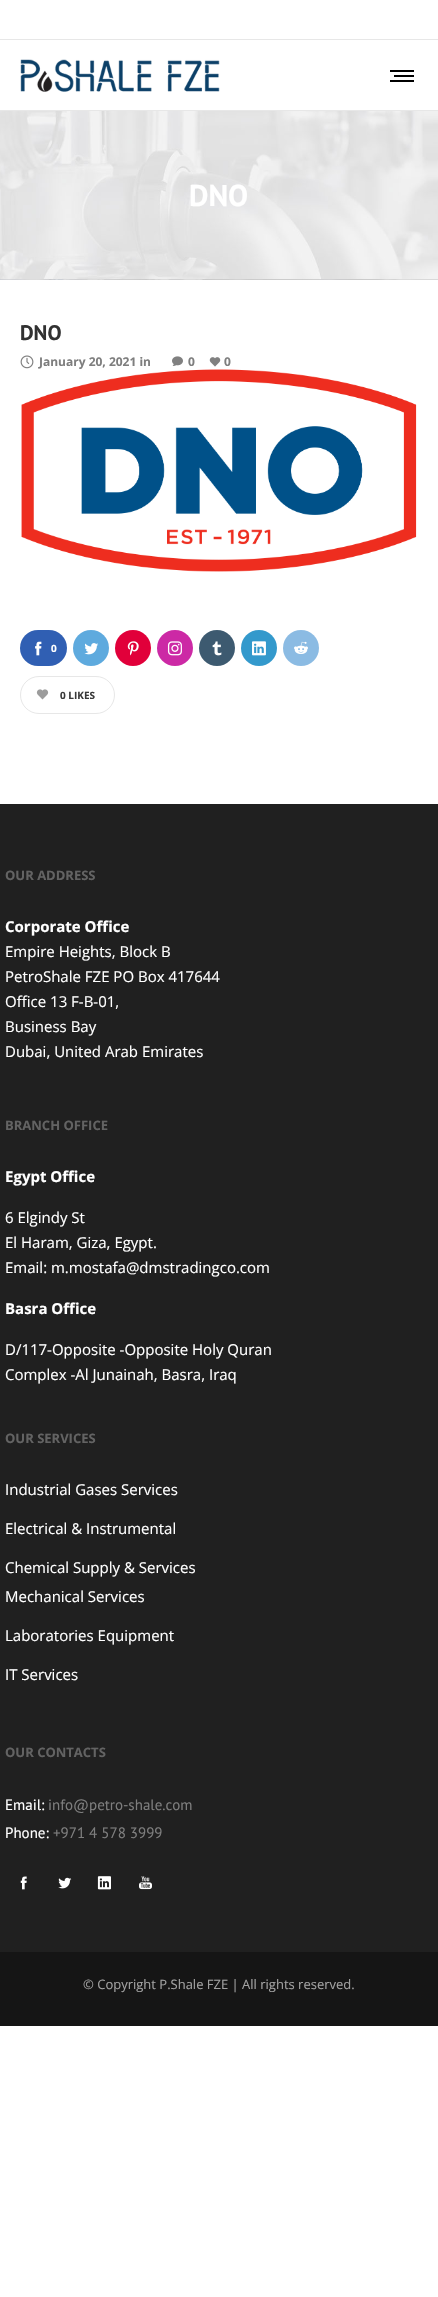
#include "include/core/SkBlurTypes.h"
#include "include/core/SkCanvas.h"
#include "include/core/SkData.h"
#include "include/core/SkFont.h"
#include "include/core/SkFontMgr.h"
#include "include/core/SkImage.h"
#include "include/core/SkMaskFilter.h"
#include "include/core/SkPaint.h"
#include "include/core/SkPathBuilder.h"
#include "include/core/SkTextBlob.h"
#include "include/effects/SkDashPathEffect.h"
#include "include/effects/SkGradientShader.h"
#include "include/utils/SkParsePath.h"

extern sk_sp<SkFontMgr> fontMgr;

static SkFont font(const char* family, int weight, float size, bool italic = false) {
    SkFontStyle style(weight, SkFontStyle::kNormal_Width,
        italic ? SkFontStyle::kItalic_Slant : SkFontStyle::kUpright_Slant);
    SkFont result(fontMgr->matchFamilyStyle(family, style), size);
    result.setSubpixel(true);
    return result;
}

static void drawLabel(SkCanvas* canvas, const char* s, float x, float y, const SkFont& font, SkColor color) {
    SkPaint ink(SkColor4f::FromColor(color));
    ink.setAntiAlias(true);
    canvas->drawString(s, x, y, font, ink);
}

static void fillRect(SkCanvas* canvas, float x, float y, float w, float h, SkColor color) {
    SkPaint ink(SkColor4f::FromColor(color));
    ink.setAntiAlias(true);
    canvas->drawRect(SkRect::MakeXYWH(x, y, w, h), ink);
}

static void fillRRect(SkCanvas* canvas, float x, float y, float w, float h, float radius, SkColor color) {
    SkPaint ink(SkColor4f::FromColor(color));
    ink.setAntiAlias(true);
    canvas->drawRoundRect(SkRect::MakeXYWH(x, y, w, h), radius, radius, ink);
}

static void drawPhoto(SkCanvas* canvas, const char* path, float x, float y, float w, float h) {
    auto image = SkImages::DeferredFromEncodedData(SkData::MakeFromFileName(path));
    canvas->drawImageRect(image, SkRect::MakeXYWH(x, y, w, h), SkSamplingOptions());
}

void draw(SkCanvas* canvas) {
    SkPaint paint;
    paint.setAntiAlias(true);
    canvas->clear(0xFFFFFFFF);
    fillRect(canvas, 0, 110, 438, 1, 0xFFE7E7E7);
    fillRect(canvas, 0, 39, 438, 1, 0xFFE7E7E7);
    drawPhoto(canvas, "assets/img1.png", 20, 59, 200, 33);
    fillRect(canvas, 390, 70, 24, 2, 0xFF000000);
    fillRect(canvas, 394, 75, 20, 2, 0xFF000000);
    fillRect(canvas, 390, 80, 24, 2, 0xFF000000);
    drawPhoto(canvas, "assets/img2.png", 0, 111, 438, 169);
    fillRect(canvas, 0, 279, 438, 1, 0x1A1B1B1B);
    SkFont font1 = font("PT Sans", 700, 30);
    drawLabel(canvas, "DNO", 189, 206, font1, 0xFFFFFFFF);
    SkFont font2 = font("PT Sans", 700, 21);
    drawLabel(canvas, "DNO", 20, 340, font2, 0xFF313131);
    drawPhoto(canvas, "assets/img3.png", 20, 355, 14, 14);
    SkFont font3 = font("Open Sans", 700, 12);
    drawLabel(canvas, "January 20, 2021 in", 39, 366, font3, 0xFF7E7E7E);
    drawPhoto(canvas, "assets/img4.png", 172, 356, 11, 10);
    drawLabel(canvas, "0", 188, 366, font3, 0xFF7E7E7E);
    drawPhoto(canvas, "assets/img5.png", 209, 357, 12, 10);
    drawLabel(canvas, "0", 224, 366, font3, 0xFF7E7E7E);
    drawPhoto(canvas, "assets/img6.png", 21, 369, 396, 203);
    fillRRect(canvas, 20, 630, 47, 36, 18, 0xFF305FB3);
    drawPhoto(canvas, "assets/img7.png", 35, 641, 7, 15);
    SkFont font4 = font("Open Sans", 700, 10);
    drawLabel(canvas, "0", 51, 652, font4, 0xFFFFFFFF);
    paint.setColor(0xFF5EAADE);
    canvas->drawCircle(91, 648, 18, paint);
    drawPhoto(canvas, "assets/img8.png", 84, 643, 15, 12);
    paint.setColor(0xFFE1003A);
    canvas->drawCircle(133, 648, 18, paint);
    drawPhoto(canvas, "assets/img9.png", 127, 641, 12, 15);
    paint.setColor(0xFFCC29A5);
    canvas->drawCircle(175, 648, 18, paint);
    drawPhoto(canvas, "assets/img10.png", 167, 641, 15, 15);
    paint.setColor(0xFF3D5A70);
    canvas->drawCircle(217, 648, 18, paint);
    drawPhoto(canvas, "assets/img11.png", 212, 641, 10, 15);
    paint.setColor(0xFF3399CC);
    canvas->drawCircle(259, 648, 18, paint);
    drawPhoto(canvas, "assets/img12.png", 252, 641, 14, 15);
    paint.setColor(0xFF8BBBE3);
    canvas->drawCircle(301, 648, 18, paint);
    drawPhoto(canvas, "assets/img13.png", 294, 641, 14, 13);
    drawPhoto(canvas, "assets/img14.png", 36, 689, 13, 11);
    paint.setStroke(true);
    paint.setStrokeWidth(1);
    paint.setColor(0xFFE7E7E7);
    canvas->drawRoundRect(SkRect::MakeXYWH(20.5f, 676.5f, 94, 37), 18.5f, 18.5f, paint);
    drawLabel(canvas, "0 LIKES", 60, 699, font4, 0xFF393939);
    fillRect(canvas, 0, 804, 438, 1148, 0xFF202020);
    SkFont font5 = font("Open Sans", 700, 13);
    drawLabel(canvas, "OUR ADDRESS", 5, 880, font5, 0xFF636363);
    SkFont font6 = font("Open Sans", 700, 15);
    drawLabel(canvas, "Corporate Office", 5, 932, font6, 0xFFFFFFFF);
    SkFont font7 = font("Open Sans", 400, 15);
    drawLabel(canvas, "Empire Heights, Block B", 5, 957, font7, 0xFFFFFFFF);
    drawLabel(canvas, "PetroShale FZE PO Box 417644", 5, 982, font7, 0xFFFFFFFF);
    drawLabel(canvas, "Office 13 F-B-01,", 5, 1007, font7, 0xFFFFFFFF);
    drawLabel(canvas, "Business Bay", 5, 1032, font7, 0xFFFFFFFF);
    drawLabel(canvas, "Dubai, United Arab Emirates", 5, 1057, font7, 0xFFFFFFFF);
    drawLabel(canvas, "BRANCH OFFICE", 5, 1130, font5, 0xFF636363);
    drawLabel(canvas, "Egypt Office", 5, 1182, font6, 0xFFFFFFFF);
    drawLabel(canvas, "6 Elgindy St", 5, 1223, font7, 0xFFFFFFFF);
    drawLabel(canvas, "El Haram, Giza, Egypt.", 5, 1248, font7, 0xFFFFFFFF);
    drawLabel(canvas, "Email: m.mostafa@dmstradingco.com", 5, 1273, font7, 0xFFFFFFFF);
    drawLabel(canvas, "Basra Office", 5, 1314, font6, 0xFFFFFFFF);
    drawLabel(canvas, "D/117-Opposite -Opposite Holy Quran", 5, 1355, font7, 0xFFFFFFFF);
    drawLabel(canvas, "Complex -Al Junainah, Basra, Iraq", 5, 1380, font7, 0xFFFFFFFF);
    drawLabel(canvas, "OUR SERVICES", 5, 1443, font5, 0xFF636363);
    drawLabel(canvas, "Industrial Gases Services", 5, 1495, font7, 0xFFFFFFFF);
    drawLabel(canvas, "Electrical & Instrumental", 5, 1534, font7, 0xFFFFFFFF);
    drawLabel(canvas, "Chemical Supply & Services", 5, 1573, font7, 0xFFFFFFFF);
    drawLabel(canvas, "Mechanical Services", 5, 1602, font7, 0xFFFFFFFF);
    drawLabel(canvas, "Laboratories Equipment", 5, 1641, font7, 0xFFFFFFFF);
    drawLabel(canvas, "IT Services", 5, 1680, font7, 0xFFFFFFFF);
    drawLabel(canvas, "OUR CONTACTS", 5, 1757, font5, 0xFF636363);
    SkFont font8 = font("PT Sans", 400, 15);
    drawLabel(canvas, "Email:", 5, 1810, font8, 0xFFFFFFFF);
    drawLabel(canvas, "info@petro-shale.com", 48, 1810, font8, 0xFF7E7E7E);
    drawLabel(canvas, "Phone:", 5, 1838, font8, 0xFFFFFFFF);
    drawLabel(canvas, "+971 4 578 3999", 53, 1838, font8, 0xFF7E7E7E);
    drawPhoto(canvas, "assets/img15.png", 20, 1876, 7, 14);
    drawPhoto(canvas, "assets/img16.png", 58, 1877, 14, 12);
    drawPhoto(canvas, "assets/img17.png", 97, 1876, 14, 14);
    drawPhoto(canvas, "assets/img18.png", 139, 1876, 13, 14);
    fillRect(canvas, 0, 1952, 438, 74, 0xFF151515);
    SkFont font9 = font("Open Sans", 400, 13);
    drawLabel(canvas, "© Copyright P.Shale FZE | All rights reserved.", 83, 1989, font9, 0xFFA1A1A1);
}
